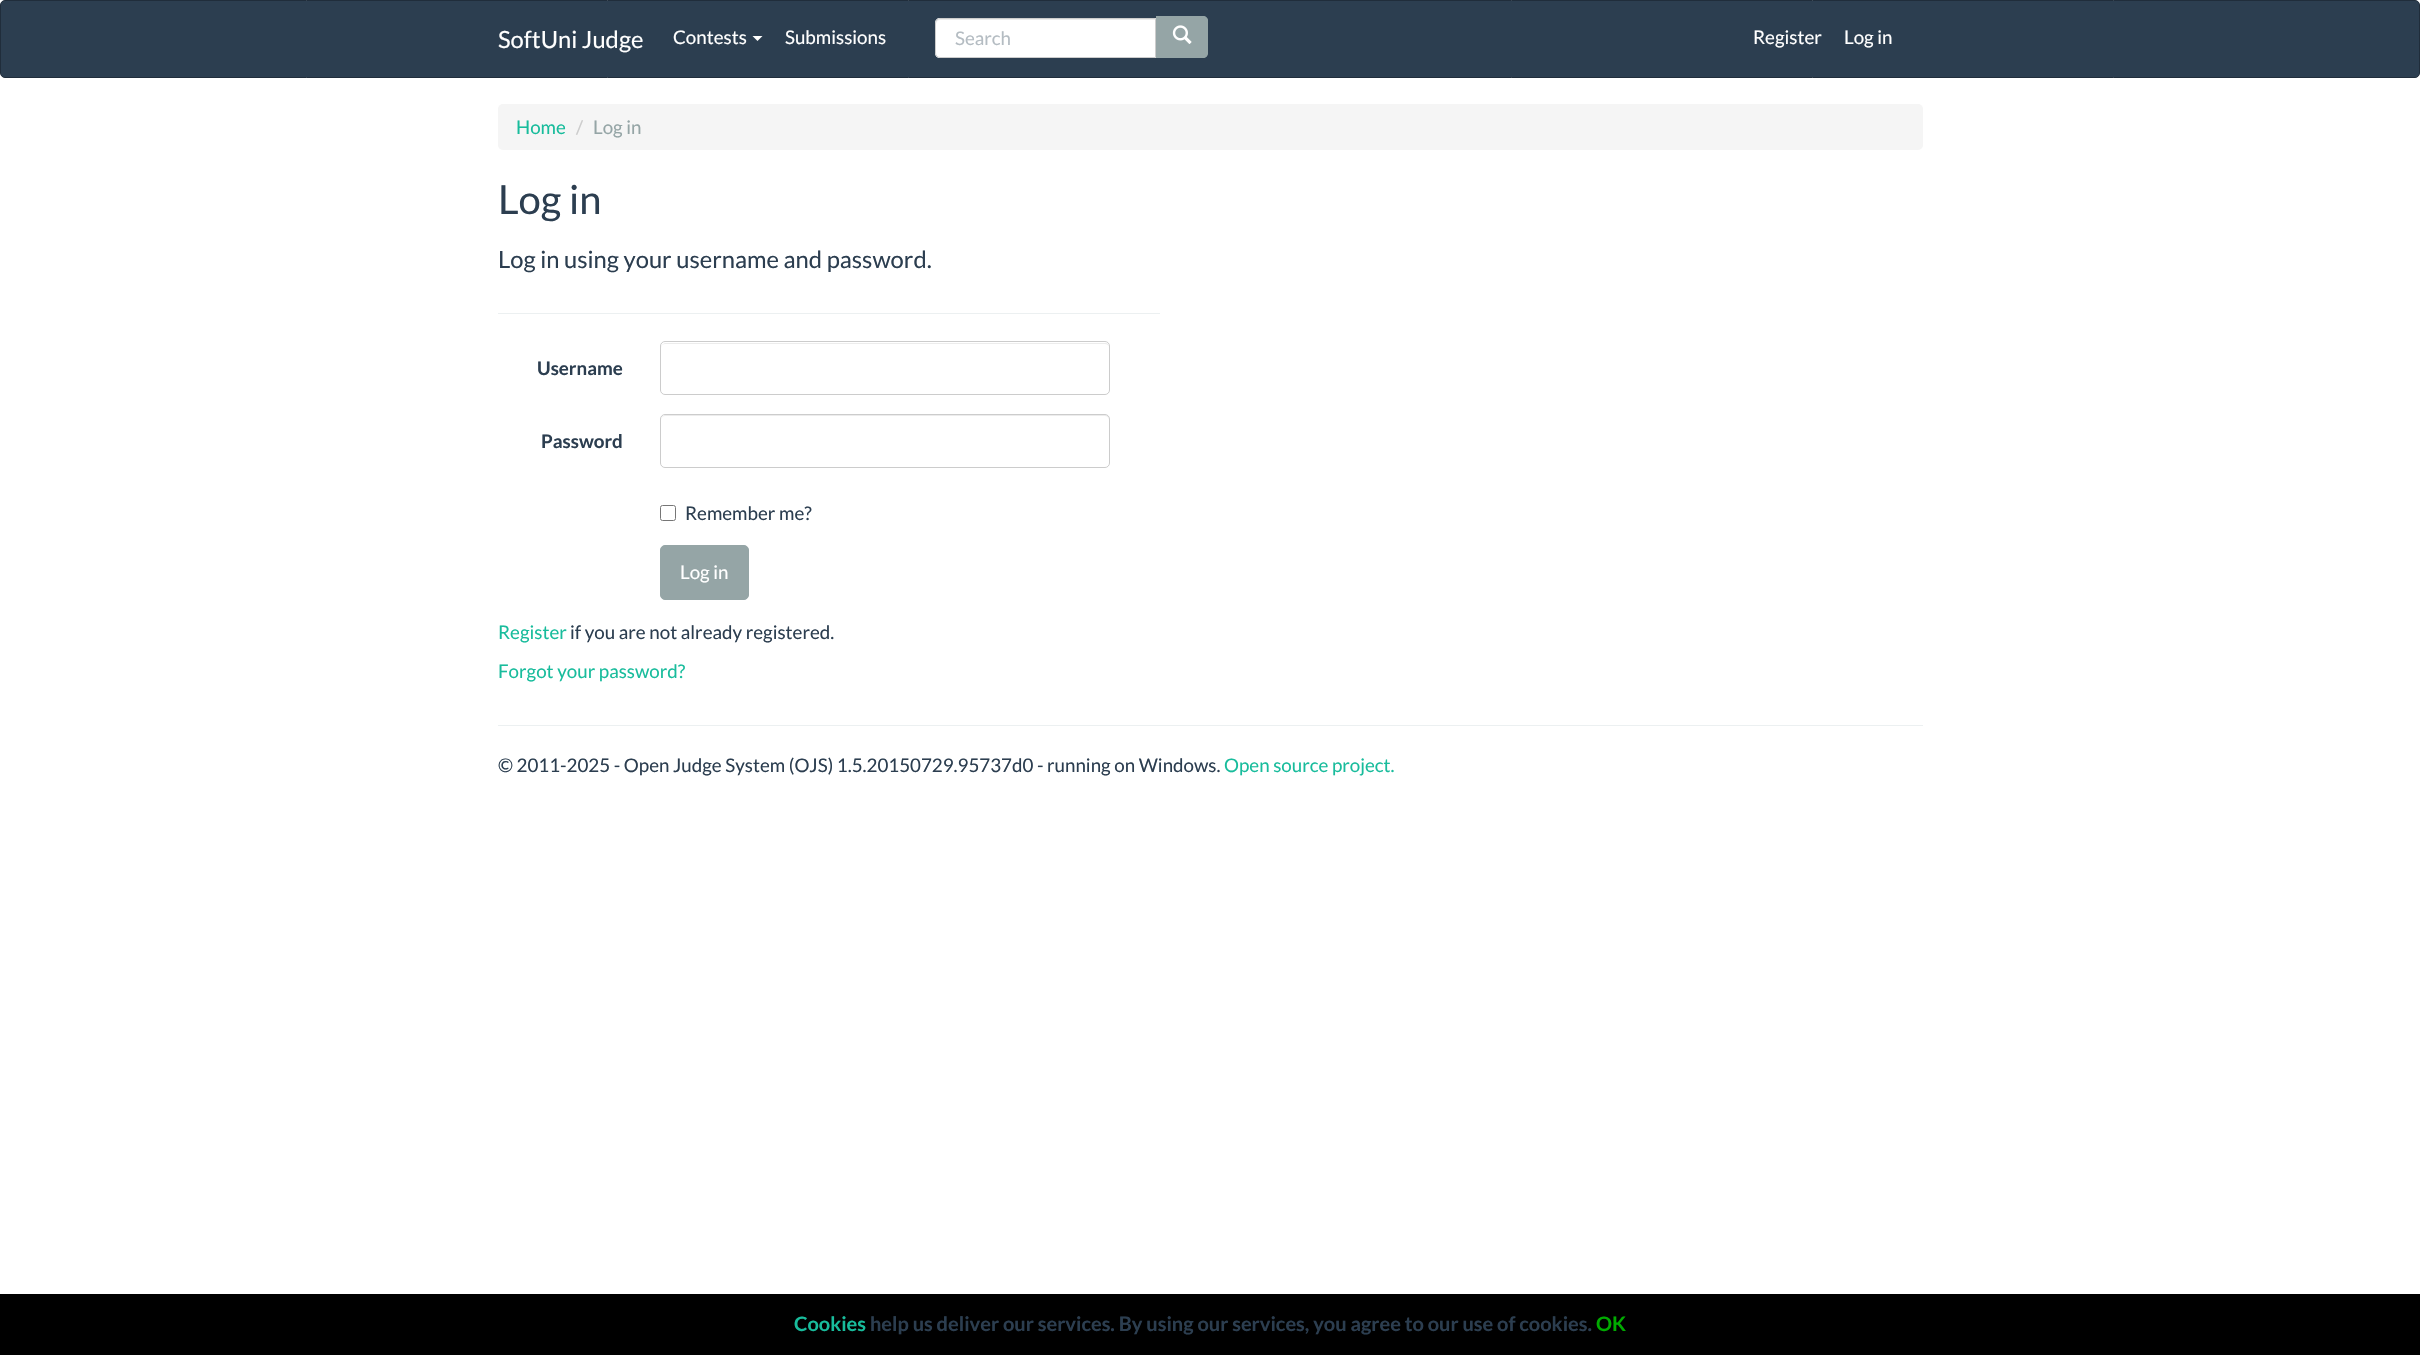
#include "include/core/SkBlurTypes.h"
#include "include/core/SkCanvas.h"
#include "include/core/SkData.h"
#include "include/core/SkFont.h"
#include "include/core/SkFontMgr.h"
#include "include/core/SkImage.h"
#include "include/core/SkMaskFilter.h"
#include "include/core/SkPaint.h"
#include "include/core/SkPathBuilder.h"
#include "include/core/SkTextBlob.h"
#include "include/effects/SkDashPathEffect.h"
#include "include/effects/SkGradientShader.h"
#include "include/utils/SkParsePath.h"

extern sk_sp<SkFontMgr> fontMgr;

static SkFont font(const char* family, int weight, float size, bool italic = false) {
    SkFontStyle style(weight, SkFontStyle::kNormal_Width,
        italic ? SkFontStyle::kItalic_Slant : SkFontStyle::kUpright_Slant);
    SkFont result(fontMgr->matchFamilyStyle(family, style), size);
    result.setSubpixel(true);
    return result;
}

static void drawLabel(SkCanvas* canvas, const char* s, float x, float y, const SkFont& font, SkColor color) {
    SkPaint ink(SkColor4f::FromColor(color));
    ink.setAntiAlias(true);
    canvas->drawString(s, x, y, font, ink);
}

static void fillRect(SkCanvas* canvas, float x, float y, float w, float h, SkColor color) {
    SkPaint ink(SkColor4f::FromColor(color));
    ink.setAntiAlias(true);
    canvas->drawRect(SkRect::MakeXYWH(x, y, w, h), ink);
}

static void fillRRect(SkCanvas* canvas, float x, float y, float w, float h, float radius, SkColor color) {
    SkPaint ink(SkColor4f::FromColor(color));
    ink.setAntiAlias(true);
    canvas->drawRoundRect(SkRect::MakeXYWH(x, y, w, h), radius, radius, ink);
}

static void drawPhoto(SkCanvas* canvas, const char* path, float x, float y, float w, float h) {
    auto image = SkImages::DeferredFromEncodedData(SkData::MakeFromFileName(path));
    canvas->drawImageRect(image, SkRect::MakeXYWH(x, y, w, h), SkSamplingOptions());
}

static SkPath parsePath(const char* data, bool evenOdd = false) {
    SkPath result = *SkParsePath::FromSVGString(data);
    if (evenOdd) result.setFillType(SkPathFillType::kEvenOdd);
    return result;
}

void draw(SkCanvas* canvas) {
    SkPaint paint;
    paint.setAntiAlias(true);
    canvas->clear(0xFFFFFFFF);
    paint.setColor(0xFF2C3E50);
    canvas->drawRoundRect(SkRect::MakeXYWH(0.5f, 0.5f, 2419, 77), 4.5f, 4.5f, paint);
    paint.setStroke(true);
    paint.setStrokeWidth(1);
    paint.setColor(0xFF202D3B);
    canvas->drawRoundRect(SkRect::MakeXYWH(0.5f, 0.5f, 2419, 77), 4.5f, 4.5f, paint);
    SkFont font1 = font("Lato", 400, 23.75f);
    drawLabel(canvas, "SoftUni Judge", 498, 48, font1, 0xFFFFFFFF);
    SkFont font2 = font("Lato", 400, 18.75f);
    drawLabel(canvas, "Contests", 673, 44, font2, 0xFFFFFFFF);
    paint.setStroke(false);
    paint.setColor(0xFFFFFFFF);
    canvas->drawPath(parsePath("M752.5 36H762.5L757.5 41Z"), paint);
    drawLabel(canvas, "Submissions", 785, 44, font2, 0xFFFFFFFF);
    canvas->drawPath(parsePath("M940 18H1156V58H940C937 58 935 56 935 53V23C935 20 937 18 940 18Z"), paint);
    paint.setColor(0xFFECECEC);
    canvas->drawPath(parsePath("M940 20H1155V19H940C937 19 936 21 936 24C936 22 938 20 940 20Z"), paint);
    paint.setStroke(true);
    paint.setColor(0xFFCCCCCC);
    canvas->drawPath(parsePath("M940 18.5H1155.5V57.5H940C937.5 57.5 935.5 55.5 935.5 53V23C935.5 20.5 937.5 18.5 940 18.5Z"), paint);
    drawLabel(canvas, "Search", 955, 45, font2, 0xFFB4BCC2);
    paint.setStroke(false);
    paint.setColor(0xFF95A5A6);
    canvas->drawPath(parsePath("M1156 16H1203C1206 16 1208 18 1208 21V53C1208 56 1206 58 1203 58H1156Z"), paint);
    canvas->drawPath(parsePath("M1156 16H1202C1205 16 1208 18 1208 21V52C1208 55 1205 58 1202 58H1156ZM1158 16H1202C1205 16 1206 18 1206 21V52C1206 55 1205 56 1202 56H1158Z", true), paint);
    drawPhoto(canvas, "assets/img1.png", 1172, 25, 20, 19);
    drawLabel(canvas, "Register", 1753, 44, font2, 0xFFFFFFFF);
    drawLabel(canvas, "Log in", 1844, 44, font2, 0xFFFFFFFF);
    fillRRect(canvas, 498, 104, 1425, 46, 5, 0xFFF5F5F5);
    drawLabel(canvas, "Home", 516, 134, font2, 0xFF18BC9C);
    drawLabel(canvas, "/", 576, 134, font2, 0xFFCCCCCC);
    drawLabel(canvas, "Log in", 593, 134, font2, 0xFF95A5A6);
    SkFont font3 = font("Lato", 400, 40);
    drawLabel(canvas, "Log in", 498, 214, font3, 0xFF2C3E50);
    drawLabel(canvas, "Log in using your username and password.", 498, 268, font1, 0xFF2C3E50);
    fillRect(canvas, 498, 313, 662, 1, 0xFFECF0F1);
    SkFont font4 = font("Lato", 700, 18.75f);
    drawLabel(canvas, "Username", 537, 375, font4, 0xFF2C3E50);
    paint.setColor(0xFFECECEC);
    canvas->drawPath(parsePath("M665 344H1105C1107 344 1109 345 1109 348C1109 345 1108 343 1105 343H665L663 344L662 345L661 348C661 345 663 344 665 344Z"), paint);
    paint.setStroke(true);
    paint.setColor(0xFFCCCCCC);
    canvas->drawRoundRect(SkRect::MakeXYWH(660.5f, 341.5f, 449, 53), 4.5f, 4.5f, paint);
    drawLabel(canvas, "Password", 541, 448, font4, 0xFF2C3E50);
    paint.setStroke(false);
    paint.setColor(0xFFECECEC);
    canvas->drawPath(parsePath("M665 416H1105C1107 416 1109 418 1109 420C1109 417 1108 415 1105 415H665L663 416L662 417L661 420C661 418 663 416 665 416Z"), paint);
    paint.setStroke(true);
    paint.setColor(0xFFCCCCCC);
    canvas->drawRoundRect(SkRect::MakeXYWH(660.5f, 414.5f, 449, 53), 4.5f, 4.5f, paint);
    paint.setColor(0xFF767676);
    canvas->drawRoundRect(SkRect::MakeXYWH(660.5f, 505.5f, 15, 15), 2, 2, paint);
    drawLabel(canvas, "Remember me?", 685, 520, font2, 0xFF2C3E50);
    paint.setStroke(false);
    paint.setColor(0xFF95A5A6);
    canvas->drawRoundRect(SkRect::MakeXYWH(660.5f, 545.5f, 88, 54), 4.5f, 4.5f, paint);
    paint.setStroke(true);
    canvas->drawRoundRect(SkRect::MakeXYWH(660.5f, 545.5f, 88, 54), 4.5f, 4.5f, paint);
    drawLabel(canvas, "Log in", 680, 579, font2, 0xFFFFFFFF);
    drawLabel(canvas, "Register", 498, 639, font2, 0xFF18BC9C);
    drawLabel(canvas, "if you are not already registered.", 570, 639, font2, 0xFF2C3E50);
    drawLabel(canvas, "Forgot your password?", 498, 678, font2, 0xFF18BC9C);
    fillRect(canvas, 498, 725, 1425, 1, 0xFFECF0F1);
    drawLabel(canvas, "© 2011-2025 - Open Judge System (OJS) 1.5.20150729.95737d0 - running on Windows.", 498, 772, font2, 0xFF2C3E50);
    drawLabel(canvas, "Open source project.", 1224, 772, font2, 0xFF18BC9C);
    fillRect(canvas, 0, 1294, 2420, 61, 0xFF000000);
    SkFont font5 = font("Lato", 700, 20);
    drawLabel(canvas, "Cookies", 794, 1331, font5, 0xFF18BC9C);
    drawLabel(canvas, "help us deliver our services. By using our services, you agree to our use of cookies.", 870, 1331, font5, 0xFF2C3E50);
    drawLabel(canvas, "OK", 1596, 1331, font5, 0xFF00AA00);
}
